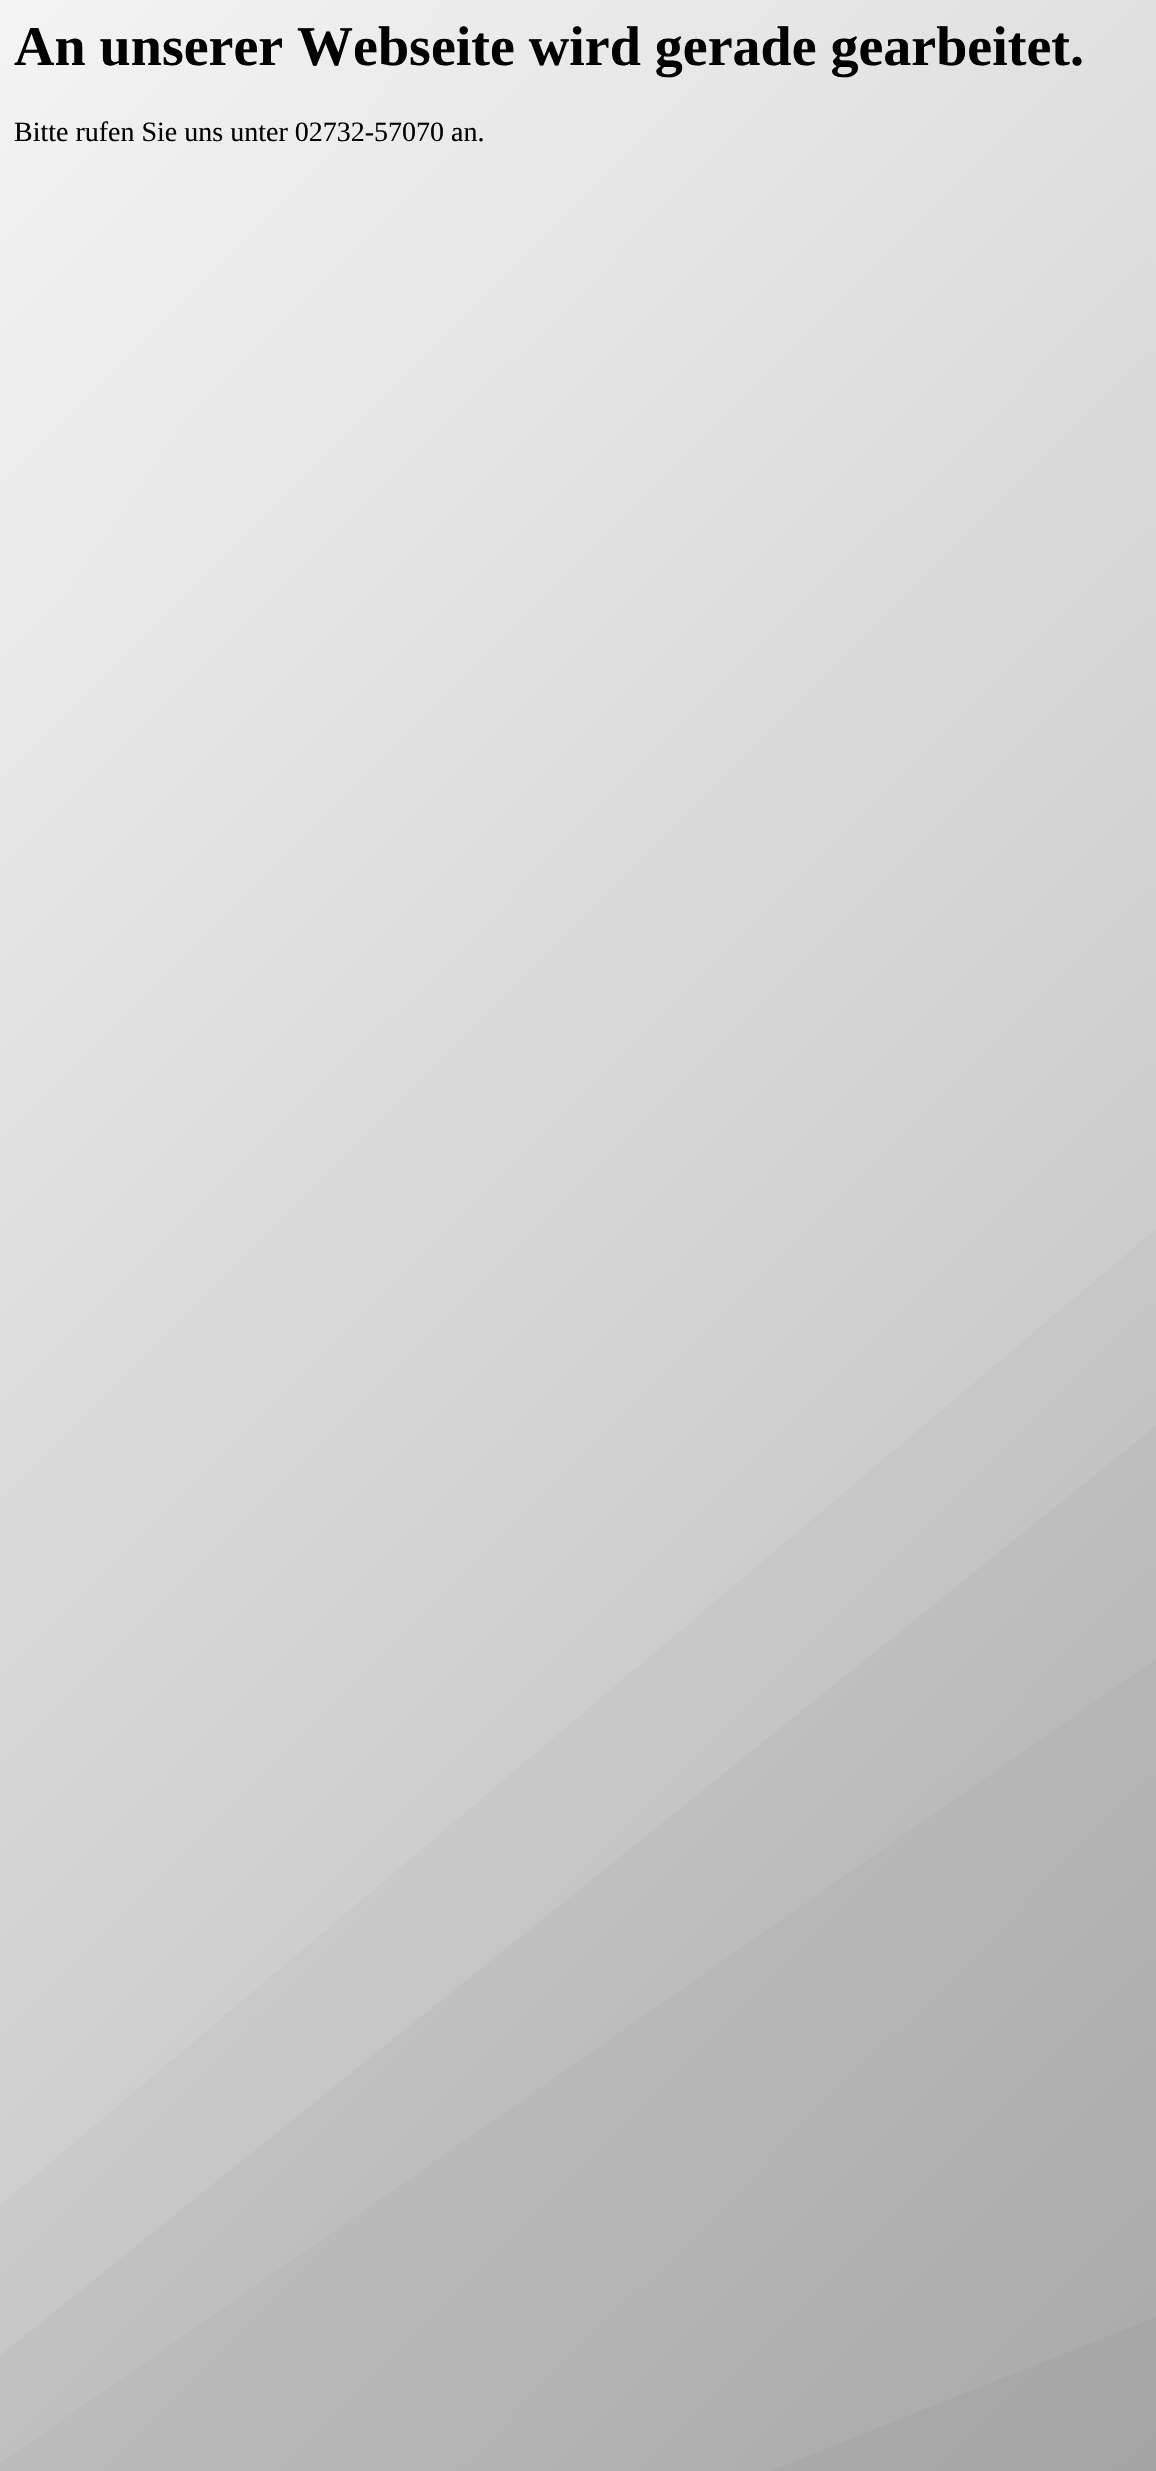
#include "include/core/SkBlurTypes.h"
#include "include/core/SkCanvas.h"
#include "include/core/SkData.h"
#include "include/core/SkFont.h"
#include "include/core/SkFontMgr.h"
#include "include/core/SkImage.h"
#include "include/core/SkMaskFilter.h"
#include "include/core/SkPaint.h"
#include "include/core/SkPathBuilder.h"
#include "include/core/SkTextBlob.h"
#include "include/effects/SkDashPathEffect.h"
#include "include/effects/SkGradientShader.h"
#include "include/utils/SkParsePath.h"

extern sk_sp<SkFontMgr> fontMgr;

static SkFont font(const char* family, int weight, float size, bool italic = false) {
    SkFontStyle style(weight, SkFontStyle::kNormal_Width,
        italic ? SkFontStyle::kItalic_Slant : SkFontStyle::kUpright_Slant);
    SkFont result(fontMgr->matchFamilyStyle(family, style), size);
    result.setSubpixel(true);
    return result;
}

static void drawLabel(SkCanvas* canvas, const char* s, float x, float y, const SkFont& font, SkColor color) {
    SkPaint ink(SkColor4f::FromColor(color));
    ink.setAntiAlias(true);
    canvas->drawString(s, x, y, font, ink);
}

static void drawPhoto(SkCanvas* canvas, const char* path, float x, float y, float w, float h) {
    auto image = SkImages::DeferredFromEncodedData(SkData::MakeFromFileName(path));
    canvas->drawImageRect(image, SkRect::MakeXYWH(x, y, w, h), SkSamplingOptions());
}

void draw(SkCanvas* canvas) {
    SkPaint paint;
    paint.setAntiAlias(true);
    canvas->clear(0xFFFFFFFF);
    drawPhoto(canvas, "assets/img1.png", 0, 0, 1156, 2471);
    SkFont font1 = font("Liberation Serif", 700, 56);
    drawLabel(canvas, "An unserer Webseite wird gerade gearbeitet.", 14, 65, font1, 0xFF000000);
    SkFont font2 = font("Liberation Serif", 400, 28);
    drawLabel(canvas, "Bitte rufen Sie uns unter 02732-57070 an.", 14, 141, font2, 0xFF000000);
}
